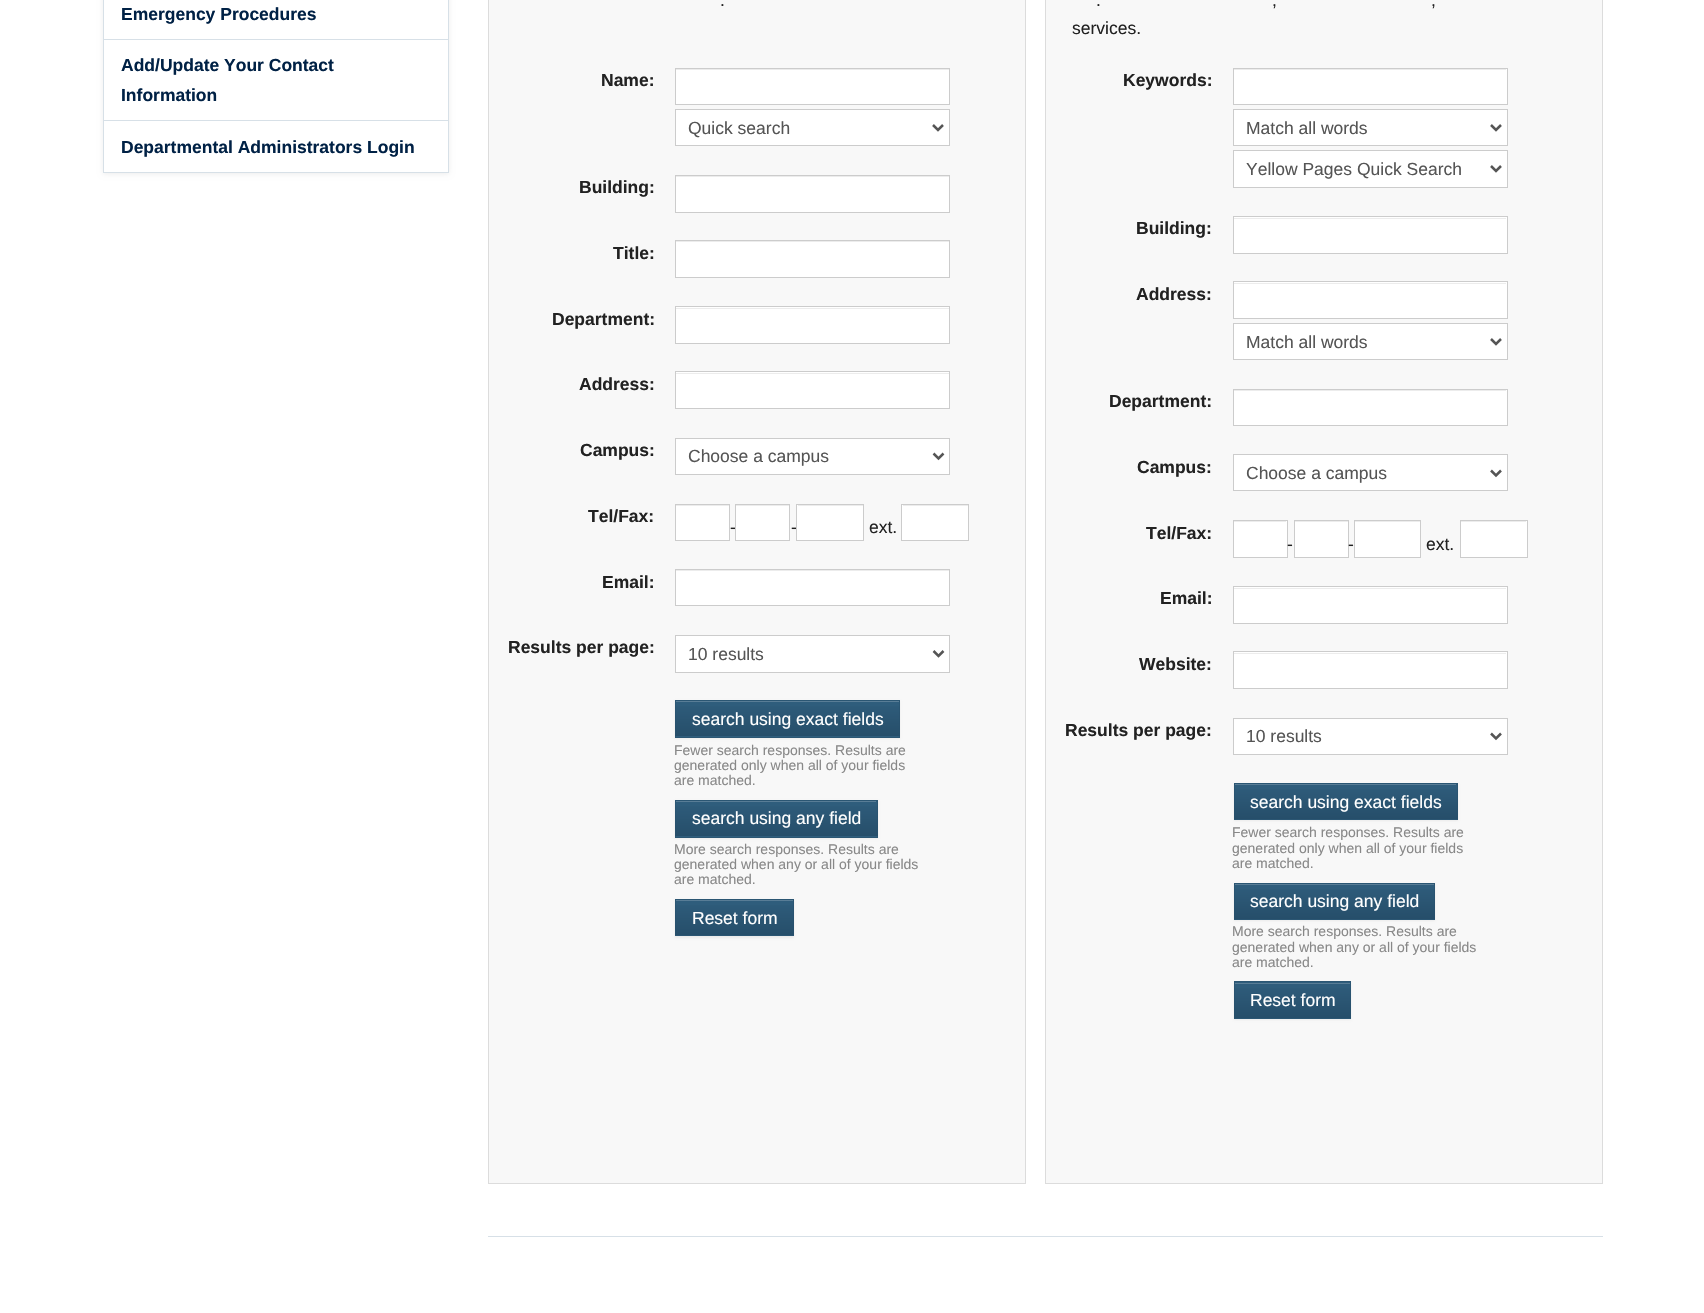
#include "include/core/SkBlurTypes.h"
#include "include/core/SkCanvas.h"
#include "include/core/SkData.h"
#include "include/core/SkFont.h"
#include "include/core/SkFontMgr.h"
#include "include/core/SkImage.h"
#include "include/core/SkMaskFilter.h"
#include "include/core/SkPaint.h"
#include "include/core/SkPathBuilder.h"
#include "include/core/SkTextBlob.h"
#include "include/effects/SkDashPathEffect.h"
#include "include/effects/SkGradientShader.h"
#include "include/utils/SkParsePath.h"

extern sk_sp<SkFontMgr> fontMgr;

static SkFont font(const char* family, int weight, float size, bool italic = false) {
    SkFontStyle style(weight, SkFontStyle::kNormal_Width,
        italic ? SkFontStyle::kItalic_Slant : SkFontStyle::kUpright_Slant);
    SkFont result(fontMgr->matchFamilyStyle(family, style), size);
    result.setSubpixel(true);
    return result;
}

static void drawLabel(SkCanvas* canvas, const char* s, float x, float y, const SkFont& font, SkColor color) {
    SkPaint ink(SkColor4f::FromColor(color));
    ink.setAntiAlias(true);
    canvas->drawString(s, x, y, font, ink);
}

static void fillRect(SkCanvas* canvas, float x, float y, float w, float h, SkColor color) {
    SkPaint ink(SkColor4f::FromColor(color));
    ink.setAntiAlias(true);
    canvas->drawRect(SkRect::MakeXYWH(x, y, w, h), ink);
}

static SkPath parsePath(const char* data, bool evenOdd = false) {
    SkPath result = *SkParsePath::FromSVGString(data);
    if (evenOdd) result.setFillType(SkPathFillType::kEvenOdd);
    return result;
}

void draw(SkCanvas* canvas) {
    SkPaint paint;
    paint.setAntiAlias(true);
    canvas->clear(0xFFFFFFFF);
    paint.setColor(0x12000000);
    paint.setMaskFilter(SkMaskFilter::MakeBlur(kNormal_SkBlurStyle, 2.5f));
    canvas->drawRect(SkRect::MakeXYWH(103, -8, 346, 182), paint);
    paint.setMaskFilter(nullptr);
    fillRect(canvas, 104, 0, 344, 172, 0xFFFFFFFF);
    paint.setStroke(true);
    paint.setStrokeWidth(1);
    paint.setColor(0xFFD7E0E7);
    canvas->drawRect(SkRect::MakeXYWH(103.5f, -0.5f, 345, 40), paint);
    SkFont font1 = font("Liberation Sans", 700, 17.5f);
    drawLabel(canvas, "Emergency Procedures", 121, 20, font1, 0xFF002145);
    canvas->drawRect(SkRect::MakeXYWH(103.5f, 39.5f, 345, 81), paint);
    drawLabel(canvas, "Add/Update Your Contact", 121, 71, font1, 0xFF002145);
    drawLabel(canvas, "Information", 121, 101, font1, 0xFF002145);
    canvas->drawRect(SkRect::MakeXYWH(103.5f, 120.5f, 345, 52), paint);
    drawLabel(canvas, "Departmental Administrators Login", 121, 153, font1, 0xFF002145);
    paint.setStroke(false);
    paint.setColor(0xFFF8F8F8);
    canvas->drawRect(SkRect::MakeXYWH(488.5f, -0.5f, 537, 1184), paint);
    paint.setStroke(true);
    paint.setColor(0xFFDCDCDC);
    canvas->drawRect(SkRect::MakeXYWH(488.5f, -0.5f, 537, 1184), paint);
    SkFont font2 = font("Liberation Sans", 400, 17.5f);
    drawLabel(canvas, ".", 720, 6, font2, 0xFF222222);
    drawLabel(canvas, "Name:", 601, 86, font1, 0xFF222222);
    fillRect(canvas, 676, 70, 273, 34, 0xFFFFFFFF);
    fillRect(canvas, 676, 69, 273, 1, 0xFFECECEC);
    paint.setColor(0xFFCCCCCC);
    canvas->drawRect(SkRect::MakeXYWH(675.5f, 68.5f, 274, 36), paint);
    paint.setStroke(false);
    paint.setColor(0xFFFFFFFF);
    canvas->drawRect(SkRect::MakeXYWH(675.5f, 109.5f, 274, 36), paint);
    paint.setStroke(true);
    paint.setColor(0xFFCCCCCC);
    canvas->drawRect(SkRect::MakeXYWH(675.5f, 109.5f, 274, 36), paint);
    paint.setStrokeWidth(2.5f);
    paint.setColor(0xFF555555);
    canvas->drawPath(parsePath("M933 125L938 130L943 125"), paint);
    drawLabel(canvas, "Quick search", 688, 134, font2, 0xFF555555);
    drawLabel(canvas, "Building:", 579, 193, font1, 0xFF222222);
    fillRect(canvas, 676, 177, 273, 35, 0xFFFFFFFF);
    fillRect(canvas, 676, 176, 273, 1, 0xFFECECEC);
    paint.setStrokeWidth(1);
    paint.setColor(0xFFCCCCCC);
    canvas->drawRect(SkRect::MakeXYWH(675.5f, 175.5f, 274, 37), paint);
    drawLabel(canvas, "Title:", 613, 259, font1, 0xFF222222);
    fillRect(canvas, 676, 242, 273, 35, 0xFFFFFFFF);
    fillRect(canvas, 676, 241, 273, 1, 0xFFECECEC);
    canvas->drawRect(SkRect::MakeXYWH(675.5f, 240.5f, 274, 37), paint);
    drawLabel(canvas, "Department:", 552, 325, font1, 0xFF222222);
    fillRect(canvas, 676, 307, 273, 36, 0xFFFFFFFF);
    fillRect(canvas, 676, 308, 273, 1, 0xFFECECEC);
    canvas->drawRect(SkRect::MakeXYWH(675.5f, 306.5f, 274, 37), paint);
    drawLabel(canvas, "Address:", 579, 390, font1, 0xFF222222);
    fillRect(canvas, 676, 372, 273, 36, 0xFFFFFFFF);
    fillRect(canvas, 676, 373, 273, 1, 0xFFECECEC);
    canvas->drawRect(SkRect::MakeXYWH(675.5f, 371.5f, 274, 37), paint);
    drawLabel(canvas, "Campus:", 580, 456, font1, 0xFF222222);
    paint.setStroke(false);
    paint.setColor(0xFFFFFFFF);
    canvas->drawRect(SkRect::MakeXYWH(675.5f, 438.5f, 274, 36), paint);
    paint.setStroke(true);
    paint.setColor(0xFFCCCCCC);
    canvas->drawRect(SkRect::MakeXYWH(675.5f, 438.5f, 274, 36), paint);
    paint.setStrokeWidth(2.5f);
    paint.setColor(0xFF555555);
    canvas->drawPath(parsePath("M933.5 453.5L938.5 458.5L943.5 453.5"), paint);
    drawLabel(canvas, "Choose a campus", 688, 462, font2, 0xFF555555);
    drawLabel(canvas, "Tel/Fax:", 588, 522, font1, 0xFF222222);
    fillRect(canvas, 676, 506, 53, 34, 0xFFFFFFFF);
    fillRect(canvas, 676, 505, 53, 1, 0xFFECECEC);
    paint.setStrokeWidth(1);
    paint.setColor(0xFFCCCCCC);
    canvas->drawRect(SkRect::MakeXYWH(675.5f, 504.5f, 54, 36), paint);
    drawLabel(canvas, "-", 730, 533, font2, 0xFF222222);
    fillRect(canvas, 736, 506, 53, 34, 0xFFFFFFFF);
    fillRect(canvas, 736, 505, 53, 1, 0xFFECECEC);
    canvas->drawRect(SkRect::MakeXYWH(735.5f, 504.5f, 54, 36), paint);
    drawLabel(canvas, "-", 791, 533, font2, 0xFF222222);
    fillRect(canvas, 797, 505, 66, 35, 0xFFFFFFFF);
    fillRect(canvas, 798, 505, 65, 1, 0xFFECECEC);
    canvas->drawRect(SkRect::MakeXYWH(796.5f, 504.5f, 67, 36), paint);
    drawLabel(canvas, "ext.", 869, 533, font2, 0xFF222222);
    fillRect(canvas, 902, 505, 66, 35, 0xFFFFFFFF);
    fillRect(canvas, 903, 505, 65, 1, 0xFFECECEC);
    canvas->drawRect(SkRect::MakeXYWH(901.5f, 504.5f, 67, 36), paint);
    drawLabel(canvas, "Email:", 602, 588, font1, 0xFF222222);
    fillRect(canvas, 676, 571, 273, 34, 0xFFFFFFFF);
    fillRect(canvas, 676, 570, 273, 1, 0xFFECECEC);
    canvas->drawRect(SkRect::MakeXYWH(675.5f, 569.5f, 274, 36), paint);
    drawLabel(canvas, "Results per page:", 508, 653, font1, 0xFF222222);
    paint.setStroke(false);
    paint.setColor(0xFFFFFFFF);
    canvas->drawRect(SkRect::MakeXYWH(675.5f, 635.5f, 274, 37), paint);
    paint.setStroke(true);
    paint.setColor(0xFFCCCCCC);
    canvas->drawRect(SkRect::MakeXYWH(675.5f, 635.5f, 274, 37), paint);
    paint.setStrokeWidth(2.5f);
    paint.setColor(0xFF555555);
    canvas->drawPath(parsePath("M933.5 651L938.5 656L943.5 651"), paint);
    drawLabel(canvas, "10 results", 688, 660, font2, 0xFF555555);
    paint.setStroke(false);
    paint.setColor(0x0D000000);
    paint.setMaskFilter(SkMaskFilter::MakeBlur(kNormal_SkBlurStyle, 1));
    canvas->drawRect(SkRect::MakeXYWH(675, 701, 225, 38), paint);
    paint.setMaskFilter(nullptr);
    fillRect(canvas, 675, 700, 225, 38, 0xFF2F5D7C);
    {
        const SkColor colors[] = {0xFF2F5D7C, 0xFF264E6A};
        const float stops[] = {0, 1};
        const SkPoint ends[] = {{788, 701}, {788, 736}};
        paint.setShader(SkGradientShader::MakeLinear(ends, colors, stops, 2, SkTileMode::kClamp));
        paint.setAlpha(255);
    }
    canvas->drawRect(SkRect::MakeXYWH(675, 706, 225, 30), paint);
    fillRect(canvas, 676, 701, 223, 1, 0xFF597D96);
    paint.setStroke(true);
    paint.setStrokeWidth(1);
    paint.setShader(nullptr);
    paint.setColor(0x80264E6A);
    canvas->drawRect(SkRect::MakeXYWH(675.5f, 700.5f, 224, 37), paint);
    drawLabel(canvas, "search using exact fields", 692, 725, font2, 0xFFFFFFFF);
    SkFont font3 = font("Liberation Sans", 400, 14);
    drawLabel(canvas, "Fewer search responses. Results are", 674, 755, font3, 0xFF888888);
    drawLabel(canvas, "generated only when all of your fields", 674, 770, font3, 0xFF888888);
    drawLabel(canvas, "are matched.", 674, 785, font3, 0xFF888888);
    paint.setStroke(false);
    paint.setColor(0x0D000000);
    paint.setMaskFilter(SkMaskFilter::MakeBlur(kNormal_SkBlurStyle, 1));
    canvas->drawRect(SkRect::MakeXYWH(675, 801, 203, 38), paint);
    paint.setMaskFilter(nullptr);
    fillRect(canvas, 675, 800, 203, 38, 0xFF2F5D7C);
    {
        const SkColor colors[] = {0xFF2F5D7C, 0xFF264E6A};
        const float stops[] = {0, 1};
        const SkPoint ends[] = {{776, 801}, {776, 836}};
        paint.setShader(SkGradientShader::MakeLinear(ends, colors, stops, 2, SkTileMode::kClamp));
        paint.setAlpha(255);
    }
    canvas->drawRect(SkRect::MakeXYWH(675, 806, 203, 30), paint);
    fillRect(canvas, 676, 801, 200, 1, 0xFF597D96);
    paint.setStroke(true);
    paint.setShader(nullptr);
    paint.setColor(0x80264E6A);
    canvas->drawRect(SkRect::MakeXYWH(675.5f, 800.5f, 202, 37), paint);
    drawLabel(canvas, "search using any field", 692, 824, font2, 0xFFFFFFFF);
    drawLabel(canvas, "More search responses. Results are", 674, 854, font3, 0xFF888888);
    drawLabel(canvas, "generated when any or all of your fields", 674, 869, font3, 0xFF888888);
    drawLabel(canvas, "are matched.", 674, 884, font3, 0xFF888888);
    paint.setStroke(false);
    paint.setColor(0x0D000000);
    paint.setMaskFilter(SkMaskFilter::MakeBlur(kNormal_SkBlurStyle, 1));
    canvas->drawRect(SkRect::MakeXYWH(675, 900, 119, 38), paint);
    paint.setMaskFilter(nullptr);
    fillRect(canvas, 675, 899, 119, 37, 0xFF2F5D7C);
    {
        const SkColor colors[] = {0xFF2F5D7C, 0xFF264E6A};
        const float stops[] = {0, 1};
        const SkPoint ends[] = {{734, 900}, {734, 935}};
        paint.setShader(SkGradientShader::MakeLinear(ends, colors, stops, 2, SkTileMode::kClamp));
        paint.setAlpha(255);
    }
    canvas->drawRect(SkRect::MakeXYWH(675, 905, 119, 30), paint);
    fillRect(canvas, 676, 900, 117, 1, 0xFF597D96);
    paint.setStroke(true);
    paint.setShader(nullptr);
    paint.setColor(0x80264E6A);
    canvas->drawRect(SkRect::MakeXYWH(675.5f, 899.5f, 118, 36), paint);
    drawLabel(canvas, "Reset form", 692, 924, font2, 0xFFFFFFFF);
    paint.setStroke(false);
    paint.setColor(0xFFF8F8F8);
    canvas->drawRect(SkRect::MakeXYWH(1045.5f, -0.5f, 557, 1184), paint);
    paint.setStroke(true);
    paint.setColor(0xFFDCDCDC);
    canvas->drawRect(SkRect::MakeXYWH(1045.5f, -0.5f, 557, 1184), paint);
    drawLabel(canvas, ".", 1096, 6, font2, 0xFF222222);
    drawLabel(canvas, ",", 1272, 6, font2, 0xFF222222);
    drawLabel(canvas, ",", 1431, 6, font2, 0xFF222222);
    drawLabel(canvas, "services.", 1072, 34, font2, 0xFF222222);
    drawLabel(canvas, "Keywords:", 1123, 86, font1, 0xFF222222);
    fillRect(canvas, 1234, 69, 273, 35, 0xFFFFFFFF);
    fillRect(canvas, 1234, 69, 272, 1, 0xFFECECEC);
    paint.setColor(0xFFCCCCCC);
    canvas->drawRect(SkRect::MakeXYWH(1233.5f, 68.5f, 274, 36), paint);
    paint.setStroke(false);
    paint.setColor(0xFFFFFFFF);
    canvas->drawRect(SkRect::MakeXYWH(1233.5f, 109.5f, 274, 36), paint);
    paint.setStroke(true);
    paint.setColor(0xFFCCCCCC);
    canvas->drawRect(SkRect::MakeXYWH(1233.5f, 109.5f, 274, 36), paint);
    paint.setStrokeWidth(2.5f);
    paint.setColor(0xFF555555);
    canvas->drawPath(parsePath("M1491 125L1496 130L1501 125"), paint);
    drawLabel(canvas, "Match all words", 1246, 134, font2, 0xFF555555);
    paint.setStroke(false);
    paint.setColor(0xFFFFFFFF);
    canvas->drawRect(SkRect::MakeXYWH(1233.5f, 150.5f, 274, 37), paint);
    paint.setStroke(true);
    paint.setStrokeWidth(1);
    paint.setColor(0xFFCCCCCC);
    canvas->drawRect(SkRect::MakeXYWH(1233.5f, 150.5f, 274, 37), paint);
    paint.setStrokeWidth(2.5f);
    paint.setColor(0xFF555555);
    canvas->drawPath(parsePath("M1491 166L1496 171L1501 166"), paint);
    drawLabel(canvas, "Yellow Pages Quick Search", 1246, 175, font2, 0xFF555555);
    drawLabel(canvas, "Building:", 1136, 234, font1, 0xFF222222);
    fillRect(canvas, 1234, 217, 273, 36, 0xFFFFFFFF);
    fillRect(canvas, 1234, 218, 272, 1, 0xFFECECEC);
    paint.setStrokeWidth(1);
    paint.setColor(0xFFCCCCCC);
    canvas->drawRect(SkRect::MakeXYWH(1233.5f, 216.5f, 274, 37), paint);
    drawLabel(canvas, "Address:", 1136, 300, font1, 0xFF222222);
    fillRect(canvas, 1234, 282, 273, 36, 0xFFFFFFFF);
    fillRect(canvas, 1234, 283, 272, 1, 0xFFECECEC);
    canvas->drawRect(SkRect::MakeXYWH(1233.5f, 281.5f, 274, 37), paint);
    paint.setStroke(false);
    paint.setColor(0xFFFFFFFF);
    canvas->drawRect(SkRect::MakeXYWH(1233.5f, 323.5f, 274, 36), paint);
    paint.setStroke(true);
    paint.setColor(0xFFCCCCCC);
    canvas->drawRect(SkRect::MakeXYWH(1233.5f, 323.5f, 274, 36), paint);
    paint.setStrokeWidth(2.5f);
    paint.setColor(0xFF555555);
    canvas->drawPath(parsePath("M1491 339L1496 344L1501 339"), paint);
    drawLabel(canvas, "Match all words", 1246, 348, font2, 0xFF555555);
    drawLabel(canvas, "Department:", 1109, 407, font1, 0xFF222222);
    fillRect(canvas, 1234, 390, 273, 35, 0xFFFFFFFF);
    fillRect(canvas, 1234, 390, 272, 1, 0xFFECECEC);
    paint.setStrokeWidth(1);
    paint.setColor(0xFFCCCCCC);
    canvas->drawRect(SkRect::MakeXYWH(1233.5f, 389.5f, 274, 36), paint);
    drawLabel(canvas, "Campus:", 1137, 473, font1, 0xFF222222);
    paint.setStroke(false);
    paint.setColor(0xFFFFFFFF);
    canvas->drawRect(SkRect::MakeXYWH(1233.5f, 454.5f, 274, 36), paint);
    paint.setStroke(true);
    paint.setColor(0xFFCCCCCC);
    canvas->drawRect(SkRect::MakeXYWH(1233.5f, 454.5f, 274, 36), paint);
    paint.setStrokeWidth(2.5f);
    paint.setColor(0xFF555555);
    canvas->drawPath(parsePath("M1491 470.5L1496 475.5L1501 470.5"), paint);
    drawLabel(canvas, "Choose a campus", 1246, 479, font2, 0xFF555555);
    drawLabel(canvas, "Tel/Fax:", 1146, 539, font1, 0xFF222222);
    fillRect(canvas, 1234, 521, 53, 36, 0xFFFFFFFF);
    fillRect(canvas, 1234, 521, 52, 1, 0xFFECECEC);
    paint.setStrokeWidth(1);
    paint.setColor(0xFFCCCCCC);
    canvas->drawRect(SkRect::MakeXYWH(1233.5f, 520.5f, 54, 37), paint);
    drawLabel(canvas, "-", 1287, 550, font2, 0xFF222222);
    fillRect(canvas, 1295, 522, 53, 35, 0xFFFFFFFF);
    fillRect(canvas, 1295, 521, 53, 1, 0xFFECECEC);
    canvas->drawRect(SkRect::MakeXYWH(1294.5f, 520.5f, 54, 37), paint);
    drawLabel(canvas, "-", 1348, 550, font2, 0xFF222222);
    fillRect(canvas, 1355, 522, 65, 35, 0xFFFFFFFF);
    fillRect(canvas, 1355, 521, 65, 1, 0xFFECECEC);
    canvas->drawRect(SkRect::MakeXYWH(1354.5f, 520.5f, 66, 37), paint);
    drawLabel(canvas, "ext.", 1426, 550, font2, 0xFF222222);
    fillRect(canvas, 1461, 521, 66, 36, 0xFFFFFFFF);
    fillRect(canvas, 1461, 521, 65, 1, 0xFFECECEC);
    canvas->drawRect(SkRect::MakeXYWH(1460.5f, 520.5f, 67, 37), paint);
    drawLabel(canvas, "Email:", 1160, 604, font1, 0xFF222222);
    fillRect(canvas, 1234, 587, 273, 36, 0xFFFFFFFF);
    fillRect(canvas, 1234, 588, 272, 1, 0xFFECECEC);
    canvas->drawRect(SkRect::MakeXYWH(1233.5f, 586.5f, 274, 37), paint);
    drawLabel(canvas, "Website:", 1139, 670, font1, 0xFF222222);
    fillRect(canvas, 1234, 652, 273, 36, 0xFFFFFFFF);
    fillRect(canvas, 1234, 653, 272, 1, 0xFFECECEC);
    canvas->drawRect(SkRect::MakeXYWH(1233.5f, 651.5f, 274, 37), paint);
    drawLabel(canvas, "Results per page:", 1065, 736, font1, 0xFF222222);
    paint.setStroke(false);
    paint.setColor(0xFFFFFFFF);
    canvas->drawRect(SkRect::MakeXYWH(1233.5f, 718.5f, 274, 36), paint);
    paint.setStroke(true);
    paint.setColor(0xFFCCCCCC);
    canvas->drawRect(SkRect::MakeXYWH(1233.5f, 718.5f, 274, 36), paint);
    paint.setStrokeWidth(2.5f);
    paint.setColor(0xFF555555);
    canvas->drawPath(parsePath("M1491 733.5L1496 738.5L1501 733.5"), paint);
    drawLabel(canvas, "10 results", 1246, 742, font2, 0xFF555555);
    paint.setStroke(false);
    paint.setColor(0x0D000000);
    paint.setMaskFilter(SkMaskFilter::MakeBlur(kNormal_SkBlurStyle, 1));
    canvas->drawRect(SkRect::MakeXYWH(1234, 784, 224, 37), paint);
    paint.setMaskFilter(nullptr);
    fillRect(canvas, 1234, 783, 224, 37, 0xFF2F5D7C);
    {
        const SkColor colors[] = {0xFF2F5D7C, 0xFF264E6A};
        const float stops[] = {0, 1};
        const SkPoint ends[] = {{1346, 784}, {1346, 819}};
        paint.setShader(SkGradientShader::MakeLinear(ends, colors, stops, 2, SkTileMode::kClamp));
        paint.setAlpha(255);
    }
    canvas->drawRect(SkRect::MakeXYWH(1234, 789, 224, 30), paint);
    fillRect(canvas, 1235, 784, 221, 1, 0xFF597D96);
    paint.setStroke(true);
    paint.setStrokeWidth(1);
    paint.setShader(nullptr);
    paint.setColor(0x80264E6A);
    canvas->drawRect(SkRect::MakeXYWH(1234.5f, 783.5f, 223, 36), paint);
    drawLabel(canvas, "search using exact fields", 1250, 808, font2, 0xFFFFFFFF);
    drawLabel(canvas, "Fewer search responses. Results are", 1232, 837, font3, 0xFF888888);
    drawLabel(canvas, "generated only when all of your fields", 1232, 853, font3, 0xFF888888);
    drawLabel(canvas, "are matched.", 1232, 868, font3, 0xFF888888);
    paint.setStroke(false);
    paint.setColor(0x0D000000);
    paint.setMaskFilter(SkMaskFilter::MakeBlur(kNormal_SkBlurStyle, 1));
    canvas->drawRect(SkRect::MakeXYWH(1234, 884, 201, 37), paint);
    paint.setMaskFilter(nullptr);
    fillRect(canvas, 1234, 883, 201, 37, 0xFF2F5D7C);
    {
        const SkColor colors[] = {0xFF2F5D7C, 0xFF264E6A};
        const float stops[] = {0, 1};
        const SkPoint ends[] = {{1334, 884}, {1334, 919}};
        paint.setShader(SkGradientShader::MakeLinear(ends, colors, stops, 2, SkTileMode::kClamp));
        paint.setAlpha(255);
    }
    canvas->drawRect(SkRect::MakeXYWH(1234, 889, 201, 30), paint);
    fillRect(canvas, 1235, 884, 199, 1, 0xFF597D96);
    paint.setStroke(true);
    paint.setShader(nullptr);
    paint.setColor(0x80264E6A);
    canvas->drawRect(SkRect::MakeXYWH(1234.5f, 883.5f, 200, 36), paint);
    drawLabel(canvas, "search using any field", 1250, 907, font2, 0xFFFFFFFF);
    drawLabel(canvas, "More search responses. Results are", 1232, 936, font3, 0xFF888888);
    drawLabel(canvas, "generated when any or all of your fields", 1232, 952, font3, 0xFF888888);
    drawLabel(canvas, "are matched.", 1232, 967, font3, 0xFF888888);
    paint.setStroke(false);
    paint.setColor(0x0D000000);
    paint.setMaskFilter(SkMaskFilter::MakeBlur(kNormal_SkBlurStyle, 1));
    canvas->drawRect(SkRect::MakeXYWH(1234, 983, 117, 37), paint);
    paint.setMaskFilter(nullptr);
    fillRect(canvas, 1234, 981, 117, 38, 0xFF2F5D7C);
    {
        const SkColor colors[] = {0xFF2F5D7C, 0xFF264E6A};
        const float stops[] = {0, 1};
        const SkPoint ends[] = {{1293, 983}, {1293, 1018}};
        paint.setShader(SkGradientShader::MakeLinear(ends, colors, stops, 2, SkTileMode::kClamp));
        paint.setAlpha(255);
    }
    canvas->drawRect(SkRect::MakeXYWH(1234, 988, 117, 30), paint);
    fillRect(canvas, 1235, 983, 115, 1, 0xFF597D96);
    paint.setStroke(true);
    paint.setShader(nullptr);
    paint.setColor(0x80264E6A);
    canvas->drawRect(SkRect::MakeXYWH(1234.5f, 981.5f, 116, 37), paint);
    drawLabel(canvas, "Reset form", 1250, 1006, font2, 0xFFFFFFFF);
    fillRect(canvas, 488, 1236, 1115, 1, 0xFFD7E0E7);
}
